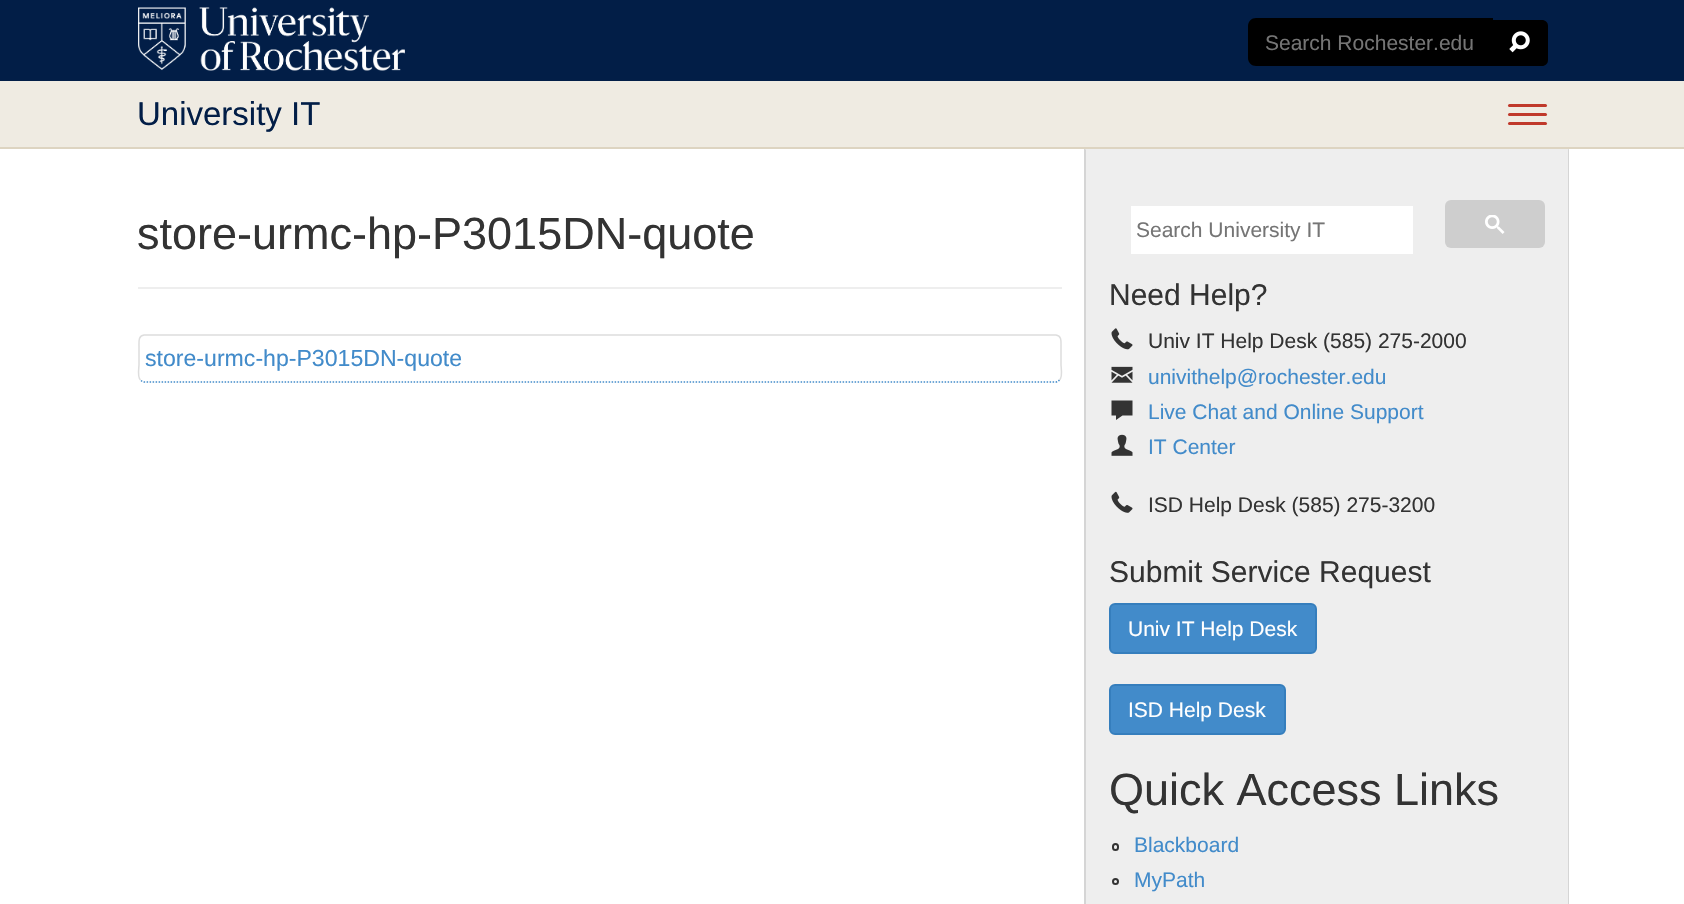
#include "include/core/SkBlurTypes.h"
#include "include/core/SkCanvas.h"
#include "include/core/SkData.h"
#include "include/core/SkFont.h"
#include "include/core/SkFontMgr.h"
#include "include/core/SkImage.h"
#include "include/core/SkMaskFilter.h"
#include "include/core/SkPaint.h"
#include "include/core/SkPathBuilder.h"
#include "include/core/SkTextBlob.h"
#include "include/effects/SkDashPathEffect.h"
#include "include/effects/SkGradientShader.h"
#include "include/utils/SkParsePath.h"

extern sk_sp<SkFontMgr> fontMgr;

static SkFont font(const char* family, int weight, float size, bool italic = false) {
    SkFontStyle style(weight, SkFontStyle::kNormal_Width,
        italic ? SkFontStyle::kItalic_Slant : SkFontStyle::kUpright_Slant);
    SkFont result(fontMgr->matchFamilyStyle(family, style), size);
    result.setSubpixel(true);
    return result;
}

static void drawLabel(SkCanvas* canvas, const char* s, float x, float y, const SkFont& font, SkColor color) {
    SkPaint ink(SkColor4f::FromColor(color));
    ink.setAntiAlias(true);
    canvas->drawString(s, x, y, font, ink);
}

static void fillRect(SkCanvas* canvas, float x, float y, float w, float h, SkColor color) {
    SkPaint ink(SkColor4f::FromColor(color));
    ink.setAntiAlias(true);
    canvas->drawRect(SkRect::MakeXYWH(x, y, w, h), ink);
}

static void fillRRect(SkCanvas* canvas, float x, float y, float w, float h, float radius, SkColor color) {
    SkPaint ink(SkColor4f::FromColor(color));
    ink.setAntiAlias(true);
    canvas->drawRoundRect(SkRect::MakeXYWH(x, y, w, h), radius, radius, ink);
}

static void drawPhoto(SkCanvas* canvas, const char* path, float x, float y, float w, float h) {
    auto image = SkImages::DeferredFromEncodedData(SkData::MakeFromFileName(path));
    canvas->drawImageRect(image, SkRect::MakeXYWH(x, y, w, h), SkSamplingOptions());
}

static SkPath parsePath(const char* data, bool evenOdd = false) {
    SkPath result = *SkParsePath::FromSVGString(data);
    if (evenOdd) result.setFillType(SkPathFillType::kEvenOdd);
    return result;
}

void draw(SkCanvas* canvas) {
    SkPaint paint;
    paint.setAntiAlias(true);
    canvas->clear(0xFFFFFFFF);
    fillRect(canvas, 0, 0, 1684, 81, 0xFF021E47);
    drawPhoto(canvas, "assets/img1.png", 138, 7, 267, 64);
    paint.setColor(0xFF000000);
    canvas->drawPath(parsePath("M1256 18H1493V66H1256C1251.5 66 1248 62.5 1248 58V26C1248 21.5 1251.5 18 1256 18Z"), paint);
    SkFont font1 = font("Liberation Sans", 400, 21);
    drawLabel(canvas, "Search Rochester.edu", 1265, 50, font1, 0xFF757575);
    canvas->drawPath(parsePath("M1491 20H1542C1545.5 20 1548 22.5 1548 26V60C1548 63.5 1545.5 66 1542 66H1491Z"), paint);
    drawPhoto(canvas, "assets/img2.png", 1509, 31, 21, 22);
    fillRect(canvas, 0, 81, 1684, 66, 0xFFEFEBE2);
    fillRect(canvas, 1085, 149, 484, 755, 0xFFEEEEEE);
    paint.setColor(0xFFD5D5D5);
    canvas->drawPath(parsePath("M1569 148L1568 150V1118C1568 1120 1567 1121 1566 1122L1567 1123C1568 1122 1569 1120 1569 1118Z"), paint);
    canvas->drawPath(parsePath("M1086 150V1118C1086 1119 1087 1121 1088 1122L1086 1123L1084 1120V148Z"), paint);
    fillRect(canvas, 0, 147, 1684, 2, 0xFFDDD4C1);
    SkFont font2 = font("Liberation Sans", 400, 33);
    drawLabel(canvas, "University IT", 137, 125, font2, 0xFF021E47);
    fillRRect(canvas, 1508, 104, 39, 3, 1.5f, 0xFFC0392B);
    fillRRect(canvas, 1508, 113, 39, 3, 1.5f, 0xFFC0392B);
    fillRRect(canvas, 1508, 122, 39, 3, 1.5f, 0xFFC0392B);
    fillRect(canvas, 138, 287, 924, 2, 0xFFEEEEEE);
    SkFont font3 = font("Liberation Sans", 400, 45);
    drawLabel(canvas, "store-urmc-hp-P3015DN-quote", 137, 249, font3, 0xFF333333);
    paint.setStroke(true);
    paint.setStrokeWidth(1.5f);
    paint.setColor(0xFF428BCA);
    paint.setPathEffect(SkDashPathEffect::Make({{1.5f, 1.5f}}, 0));
    canvas->drawPath(parsePath("M1059.5 380C1058.5 381 1057.5 382 1056 382H144C142.5 382 141.5 381 140.5 380"), paint);
    paint.setPathEffect(nullptr);
    paint.setColor(0xFFDDDDDD);
    canvas->drawPath(parsePath("M140.5 380C137 377 139 368 139 364.5V346.5C139 342.5 138 335.5 144 335H1056C1062 335.5 1061 342.5 1061 346.5V364.5C1061 368 1063 377 1059.5 380"), paint);
    SkFont font4 = font("Liberation Sans", 400, 23.1f);
    drawLabel(canvas, "store-urmc-hp-P3015DN-quote", 145, 366, font4, 0xFF428BCA);
    fillRect(canvas, 1131, 206, 282, 48, 0xFFFFFFFF);
    drawLabel(canvas, "Search University IT", 1136, 237, font1, 0xFF757575);
    fillRRect(canvas, 1445, 200, 100, 48, 6, 0xFFCECECE);
    drawPhoto(canvas, "assets/img3.png", 1485, 215, 20, 19);
    SkFont font5 = font("Liberation Sans", 400, 30);
    drawLabel(canvas, "Need Help?", 1109, 305, font5, 0xFF333333);
    drawPhoto(canvas, "assets/img4.png", 1111, 328, 22, 22);
    drawLabel(canvas, "Univ IT Help Desk (585) 275-2000", 1148, 348, font1, 0xFF333333);
    drawPhoto(canvas, "assets/img5.png", 1111, 366, 22, 17);
    drawLabel(canvas, "univithelp@rochester.edu", 1148, 384, font1, 0xFF428BCA);
    paint.setStroke(false);
    paint.setColor(0xFF333333);
    canvas->drawPath(parsePath("M1111.5 400.5V415.5H1116V420L1122.5 415.5H1132.5V400.5Z"), paint);
    drawLabel(canvas, "Live Chat and Online Support", 1148, 419, font1, 0xFF428BCA);
    drawPhoto(canvas, "assets/img6.png", 1111, 434, 22, 22);
    drawLabel(canvas, "IT Center", 1148, 454, font1, 0xFF428BCA);
    drawPhoto(canvas, "assets/img7.png", 1111, 491, 22, 22);
    drawLabel(canvas, "ISD Help Desk (585) 275-3200", 1148, 512, font1, 0xFF333333);
    drawLabel(canvas, "Submit Service Request", 1109, 582, font5, 0xFF333333);
    paint.setColor(0xFF428BCA);
    canvas->drawRoundRect(SkRect::MakeXYWH(1110, 604, 206, 49), 5, 5, paint);
    paint.setStroke(true);
    paint.setStrokeWidth(2);
    paint.setColor(0xFF357EBD);
    canvas->drawRoundRect(SkRect::MakeXYWH(1110, 604, 206, 49), 5, 5, paint);
    drawLabel(canvas, "Univ IT Help Desk", 1128, 636, font1, 0xFFFFFFFF);
    paint.setStroke(false);
    paint.setColor(0xFF428BCA);
    canvas->drawRoundRect(SkRect::MakeXYWH(1110, 685, 175, 49), 5, 5, paint);
    paint.setStroke(true);
    paint.setColor(0xFF357EBD);
    canvas->drawRoundRect(SkRect::MakeXYWH(1110, 685, 175, 49), 5, 5, paint);
    drawLabel(canvas, "ISD Help Desk", 1128, 717, font1, 0xFFFFFFFF);
    drawLabel(canvas, "Quick Access Links", 1109, 805, font3, 0xFF333333);
    paint.setColor(0xFF333333);
    canvas->drawRoundRect(SkRect::MakeXYWH(1113, 844, 5, 6), 2.5f, 2.5f, paint);
    drawLabel(canvas, "Blackboard", 1134, 852, font1, 0xFF428BCA);
    canvas->drawCircle(1115.5f, 881.5f, 2.5f, paint);
    drawLabel(canvas, "MyPath", 1134, 887, font1, 0xFF428BCA);
}
